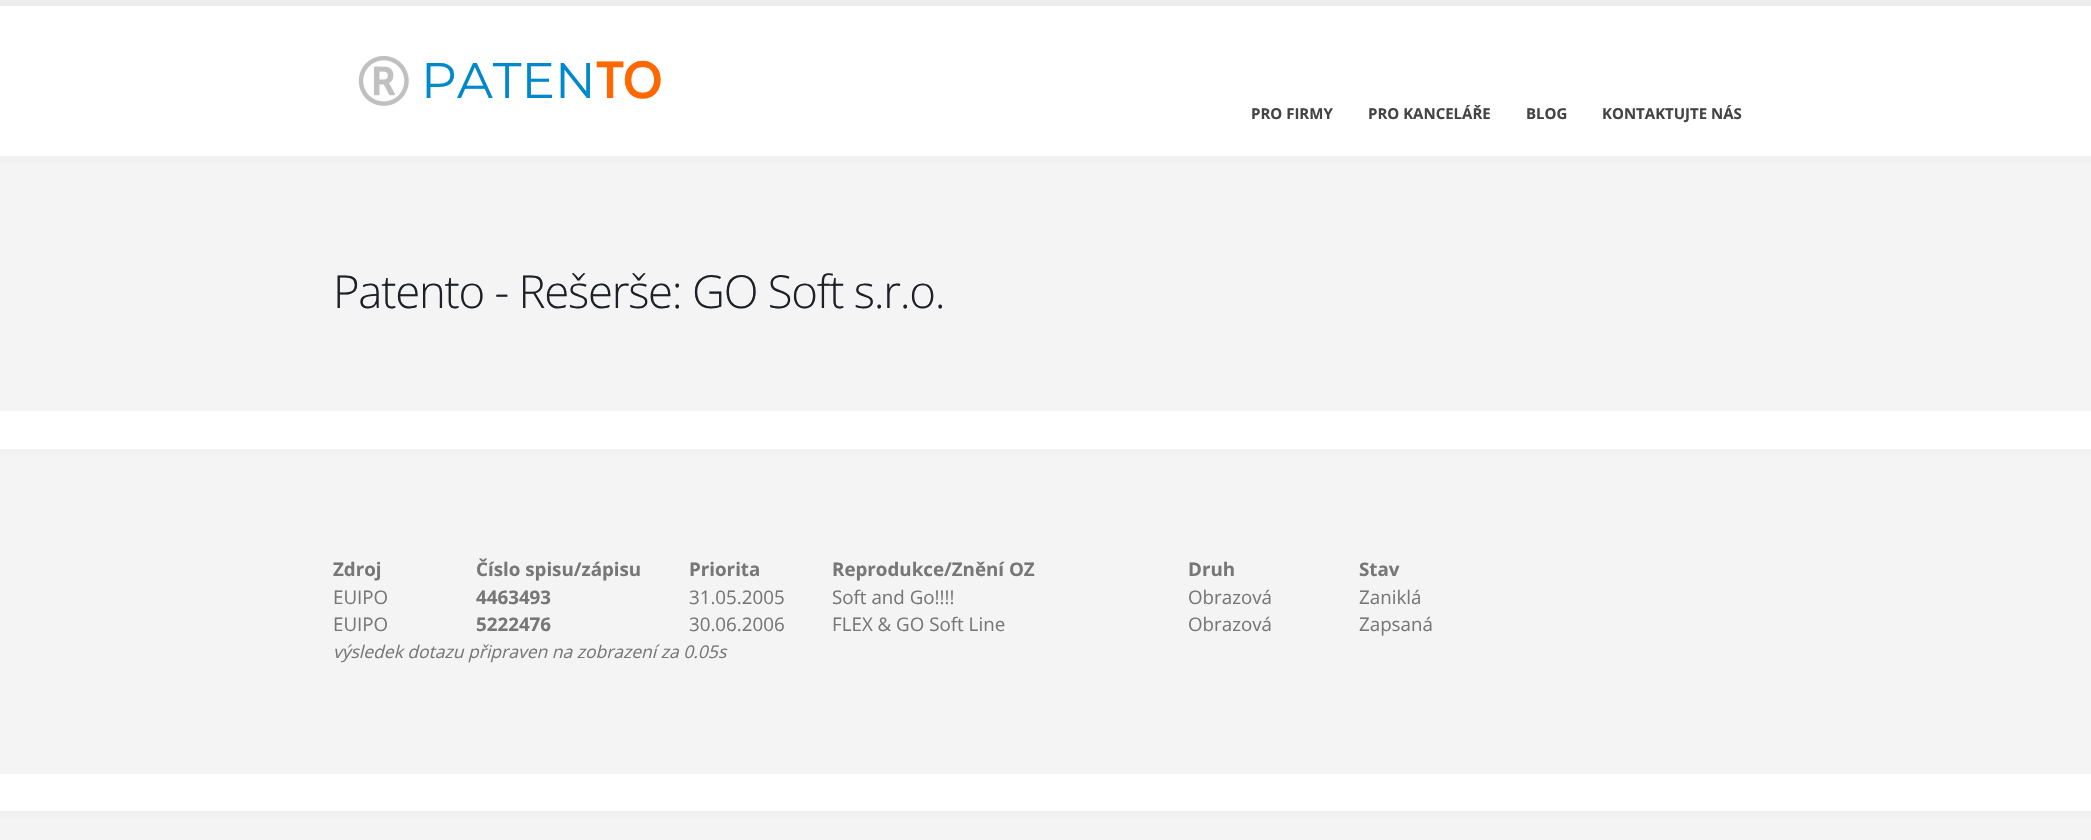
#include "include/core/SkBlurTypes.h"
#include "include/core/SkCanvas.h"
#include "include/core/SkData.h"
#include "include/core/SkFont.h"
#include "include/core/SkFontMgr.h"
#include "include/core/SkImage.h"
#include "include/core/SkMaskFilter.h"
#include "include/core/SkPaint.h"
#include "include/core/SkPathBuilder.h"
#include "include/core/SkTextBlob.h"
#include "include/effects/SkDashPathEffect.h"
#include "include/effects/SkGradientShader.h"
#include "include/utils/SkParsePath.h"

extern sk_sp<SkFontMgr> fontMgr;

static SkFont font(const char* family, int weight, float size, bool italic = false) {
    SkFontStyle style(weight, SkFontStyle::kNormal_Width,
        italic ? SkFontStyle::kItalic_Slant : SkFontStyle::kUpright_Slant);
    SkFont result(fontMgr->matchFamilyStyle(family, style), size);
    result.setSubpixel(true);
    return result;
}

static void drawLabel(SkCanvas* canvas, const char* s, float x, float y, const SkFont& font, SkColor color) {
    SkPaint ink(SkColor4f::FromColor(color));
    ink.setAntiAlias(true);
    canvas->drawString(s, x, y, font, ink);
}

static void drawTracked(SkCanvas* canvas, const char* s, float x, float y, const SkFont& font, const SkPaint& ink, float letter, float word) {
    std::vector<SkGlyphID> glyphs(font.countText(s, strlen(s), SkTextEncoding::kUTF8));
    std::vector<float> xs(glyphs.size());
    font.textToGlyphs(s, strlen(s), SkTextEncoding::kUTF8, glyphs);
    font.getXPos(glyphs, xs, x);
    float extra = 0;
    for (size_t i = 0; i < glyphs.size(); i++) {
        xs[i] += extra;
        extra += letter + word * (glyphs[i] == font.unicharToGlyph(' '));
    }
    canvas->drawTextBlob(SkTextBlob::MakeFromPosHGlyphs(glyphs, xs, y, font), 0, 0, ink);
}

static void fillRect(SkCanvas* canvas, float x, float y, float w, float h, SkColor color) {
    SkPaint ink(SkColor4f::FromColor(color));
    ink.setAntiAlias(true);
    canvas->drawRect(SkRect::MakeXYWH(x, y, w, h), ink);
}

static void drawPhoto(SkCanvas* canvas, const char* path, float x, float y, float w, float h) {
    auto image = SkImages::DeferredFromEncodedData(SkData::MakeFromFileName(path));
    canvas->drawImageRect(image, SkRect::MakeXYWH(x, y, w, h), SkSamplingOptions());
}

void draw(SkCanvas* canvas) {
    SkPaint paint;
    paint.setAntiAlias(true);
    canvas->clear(0xFFFFFFFF);
    fillRect(canvas, 0, 0, 2091, 6, 0xFFEDEDED);
    drawPhoto(canvas, "assets/img1.png", 358, 55, 51, 51);
    SkFont font1 = font("Montserrat", 100, 50);
    drawLabel(canvas, "PATEN", 421, 98, font1, 0xFF0088CC);
    SkFont font2 = font("Cabin", 700, 50);
    drawLabel(canvas, "TO", 596, 98, font2, 0xFFFF6800);
    SkFont font3 = font("Open Sans", 700, 15);
    drawLabel(canvas, "PRO FIRMY", 1251, 119, font3, 0xFF444444);
    drawLabel(canvas, "PRO KANCELÁŘE", 1368, 119, font3, 0xFF444444);
    drawLabel(canvas, "BLOG", 1526, 119, font3, 0xFF444444);
    drawLabel(canvas, "KONTAKTUJTE NÁS", 1602, 119, font3, 0xFF444444);
    fillRect(canvas, 0, 163, 2091, 248, 0xFFF4F4F4);
    fillRect(canvas, 0, 156, 2091, 7, 0xFFF1F1F1);
    SkFont font4 = font("Open Sans", 300, 45.5f);
    paint.setColor(0xFF1D2127);
    drawTracked(canvas, "Patento - Rešerše: GO Soft s.r.o.", 333, 308, font4, paint, -1.25f, 0);
    fillRect(canvas, 0, 455, 2091, 319, 0xFFF4F4F4);
    fillRect(canvas, 0, 449, 2091, 6, 0xFFF1F1F1);
    SkFont font5 = font("Open Sans", 700, 18.75f);
    drawLabel(canvas, "Zdroj", 333, 576, font5, 0xFF777777);
    drawLabel(canvas, "Číslo spisu/zápisu", 476, 576, font5, 0xFF777777);
    drawLabel(canvas, "Priorita", 689, 576, font5, 0xFF777777);
    drawLabel(canvas, "Reprodukce/Znění OZ", 832, 576, font5, 0xFF777777);
    drawLabel(canvas, "Druh", 1188, 576, font5, 0xFF777777);
    drawLabel(canvas, "Stav", 1359, 576, font5, 0xFF777777);
    SkFont font6 = font("Open Sans", 400, 18.75f);
    drawLabel(canvas, "EUIPO", 333, 604, font6, 0xFF777777);
    drawLabel(canvas, "4463493", 476, 604, font5, 0xFF777777);
    drawLabel(canvas, "31.05.2005", 689, 604, font6, 0xFF777777);
    drawLabel(canvas, "Soft and Go!!!!", 832, 604, font6, 0xFF777777);
    drawLabel(canvas, "Obrazová", 1188, 604, font6, 0xFF777777);
    drawLabel(canvas, "Zaniklá", 1359, 604, font6, 0xFF777777);
    drawLabel(canvas, "EUIPO", 333, 631, font6, 0xFF777777);
    drawLabel(canvas, "5222476", 476, 631, font5, 0xFF777777);
    drawLabel(canvas, "30.06.2006", 689, 631, font6, 0xFF777777);
    drawLabel(canvas, "FLEX & GO Soft Line", 832, 631, font6, 0xFF777777);
    drawLabel(canvas, "Obrazová", 1188, 631, font6, 0xFF777777);
    drawLabel(canvas, "Zapsaná", 1359, 631, font6, 0xFF777777);
    SkFont font7 = font("Open Sans", 400, 17.5f, true);
    drawLabel(canvas, "výsledek dotazu připraven na zobrazení za 0.05s", 333, 658, font7, 0xFF777777);
    fillRect(canvas, 0, 818, 2091, 22, 0xFFF4F4F4);
    fillRect(canvas, 0, 811, 2091, 7, 0xFFF1F1F1);
}
